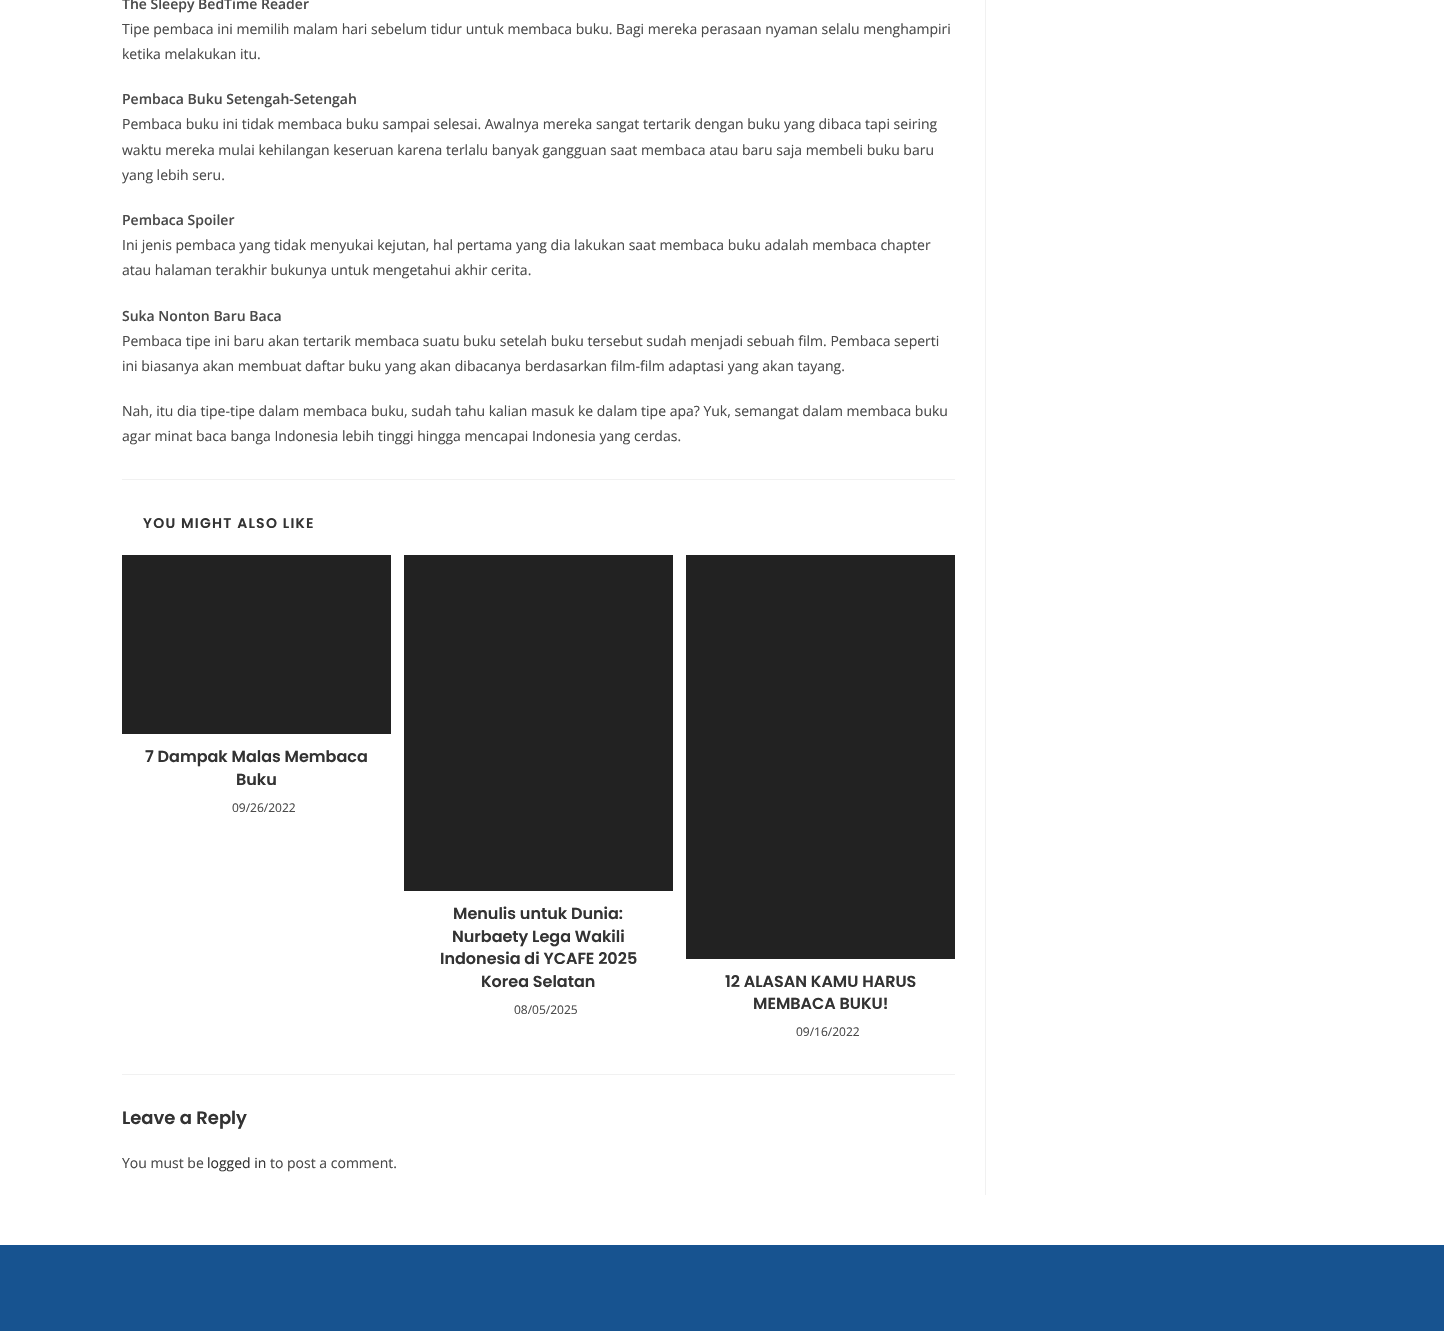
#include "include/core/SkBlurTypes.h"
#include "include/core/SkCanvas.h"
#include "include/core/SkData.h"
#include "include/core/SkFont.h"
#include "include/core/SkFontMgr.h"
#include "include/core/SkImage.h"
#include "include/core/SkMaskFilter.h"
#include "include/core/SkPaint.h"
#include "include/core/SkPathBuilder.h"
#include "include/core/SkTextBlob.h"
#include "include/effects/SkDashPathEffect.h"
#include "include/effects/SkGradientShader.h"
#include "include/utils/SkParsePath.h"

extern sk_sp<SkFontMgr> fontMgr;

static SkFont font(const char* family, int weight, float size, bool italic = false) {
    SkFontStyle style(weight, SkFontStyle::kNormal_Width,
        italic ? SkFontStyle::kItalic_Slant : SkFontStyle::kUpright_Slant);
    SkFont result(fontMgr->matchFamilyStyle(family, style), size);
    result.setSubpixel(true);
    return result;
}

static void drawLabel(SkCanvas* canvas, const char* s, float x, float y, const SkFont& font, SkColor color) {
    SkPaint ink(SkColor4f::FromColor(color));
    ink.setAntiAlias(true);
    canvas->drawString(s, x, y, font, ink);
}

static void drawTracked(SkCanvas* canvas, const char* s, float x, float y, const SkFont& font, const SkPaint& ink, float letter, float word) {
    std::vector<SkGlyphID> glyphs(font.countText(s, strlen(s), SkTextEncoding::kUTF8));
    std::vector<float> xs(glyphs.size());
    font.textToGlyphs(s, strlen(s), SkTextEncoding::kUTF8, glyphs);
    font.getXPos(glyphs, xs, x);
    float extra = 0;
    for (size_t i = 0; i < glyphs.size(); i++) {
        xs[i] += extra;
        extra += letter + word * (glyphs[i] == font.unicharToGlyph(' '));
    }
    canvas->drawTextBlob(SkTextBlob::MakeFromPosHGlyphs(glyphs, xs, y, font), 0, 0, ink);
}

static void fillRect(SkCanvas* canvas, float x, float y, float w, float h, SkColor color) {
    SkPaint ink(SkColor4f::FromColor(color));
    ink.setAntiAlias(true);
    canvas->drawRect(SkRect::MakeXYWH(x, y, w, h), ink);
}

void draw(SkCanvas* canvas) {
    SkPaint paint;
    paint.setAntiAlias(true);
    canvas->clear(0xFFFFFFFF);
    fillRect(canvas, 985, 0, 1, 1195, 0xFFF1F1F1);
    SkFont font1 = font("Open Sans", 600, 14);
    drawLabel(canvas, "The Sleepy BedTime Reader", 122, 9, font1, 0xFF4A4A4A);
    SkFont font2 = font("Open Sans", 400, 14);
    drawLabel(canvas, "Tipe pembaca ini memilih malam hari sebelum tidur untuk membaca buku. Bagi mereka perasaan nyaman selalu menghampiri", 122, 34, font2, 0xFF4A4A4A);
    drawLabel(canvas, "ketika melakukan itu.", 122, 59, font2, 0xFF4A4A4A);
    drawLabel(canvas, "Pembaca Buku Setengah-Setengah", 122, 104, font1, 0xFF4A4A4A);
    drawLabel(canvas, "Pembaca buku ini tidak membaca buku sampai selesai. Awalnya mereka sangat tertarik dengan buku yang dibaca tapi seiring", 122, 129, font2, 0xFF4A4A4A);
    drawLabel(canvas, "waktu mereka mulai kehilangan keseruan karena terlalu banyak gangguan saat membaca atau baru saja membeli buku baru", 122, 155, font2, 0xFF4A4A4A);
    drawLabel(canvas, "yang lebih seru.", 122, 180, font2, 0xFF4A4A4A);
    drawLabel(canvas, "Pembaca Spoiler", 122, 225, font1, 0xFF4A4A4A);
    drawLabel(canvas, "Ini jenis pembaca yang tidak menyukai kejutan, hal pertama yang dia lakukan saat membaca buku adalah membaca chapter", 122, 250, font2, 0xFF4A4A4A);
    drawLabel(canvas, "atau halaman terakhir bukunya untuk mengetahui akhir cerita.", 122, 275, font2, 0xFF4A4A4A);
    drawLabel(canvas, "Suka Nonton Baru Baca", 122, 321, font1, 0xFF4A4A4A);
    drawLabel(canvas, "Pembaca tipe ini baru akan tertarik membaca suatu buku setelah buku tersebut sudah menjadi sebuah film. Pembaca seperti", 122, 346, font2, 0xFF4A4A4A);
    drawLabel(canvas, "ini biasanya akan membuat daftar buku yang akan dibacanya berdasarkan film-film adaptasi yang akan tayang.", 122, 371, font2, 0xFF4A4A4A);
    drawLabel(canvas, "Nah, itu dia tipe-tipe dalam membaca buku, sudah tahu kalian masuk ke dalam tipe apa? Yuk, semangat dalam membaca buku", 122, 416, font2, 0xFF4A4A4A);
    drawLabel(canvas, "agar minat baca banga Indonesia lebih tinggi hingga mencapai Indonesia yang cerdas.", 122, 441, font2, 0xFF4A4A4A);
    fillRect(canvas, 122, 479, 833, 1, 0xFFF1F1F1);
    SkFont font3 = font("Poppins", 600, 14);
    paint.setColor(0xFF333333);
    drawTracked(canvas, "YOU MIGHT ALSO LIKE", 143, 528, font3, paint, 1.25f, 0);
    fillRect(canvas, 122, 555, 269, 179, 0xFF222222);
    SkFont font4 = font("Poppins", 600, 16);
    drawLabel(canvas, "7 Dampak Malas Membaca", 145, 762, font4, 0xFF333333);
    drawLabel(canvas, "Buku", 236, 785, font4, 0xFF333333);
    SkFont font5 = font("Open Sans", 400, 12);
    drawLabel(canvas, "09/26/2022", 232, 812, font5, 0xFF4A4A4A);
    fillRect(canvas, 404, 555, 269, 336, 0xFF222222);
    drawLabel(canvas, "Menulis untuk Dunia:", 453, 919, font4, 0xFF333333);
    drawLabel(canvas, "Nurbaety Lega Wakili", 452, 942, font4, 0xFF333333);
    drawLabel(canvas, "Indonesia di YCAFE 2025", 440, 964, font4, 0xFF333333);
    drawLabel(canvas, "Korea Selatan", 481, 987, font4, 0xFF333333);
    drawLabel(canvas, "08/05/2025", 514, 1014, font5, 0xFF4A4A4A);
    fillRect(canvas, 686, 555, 269, 404, 0xFF222222);
    drawLabel(canvas, "12 ALASAN KAMU HARUS", 725, 987, font4, 0xFF333333);
    drawLabel(canvas, "MEMBACA BUKU!", 753, 1009, font4, 0xFF333333);
    drawLabel(canvas, "09/16/2022", 796, 1036, font5, 0xFF4A4A4A);
    fillRect(canvas, 122, 1074, 833, 1, 0xFFF1F1F1);
    SkFont font6 = font("Poppins", 600, 18);
    drawLabel(canvas, "Leave a Reply", 122, 1124, font6, 0xFF333333);
    drawLabel(canvas, "You must be", 122, 1168, font2, 0xFF4A4A4A);
    drawLabel(canvas, "logged in", 207, 1168, font2, 0xFF333333);
    drawLabel(canvas, "to post a comment.", 270, 1168, font2, 0xFF4A4A4A);
    fillRect(canvas, 0, 1245, 1444, 86, 0xFF175390);
}
